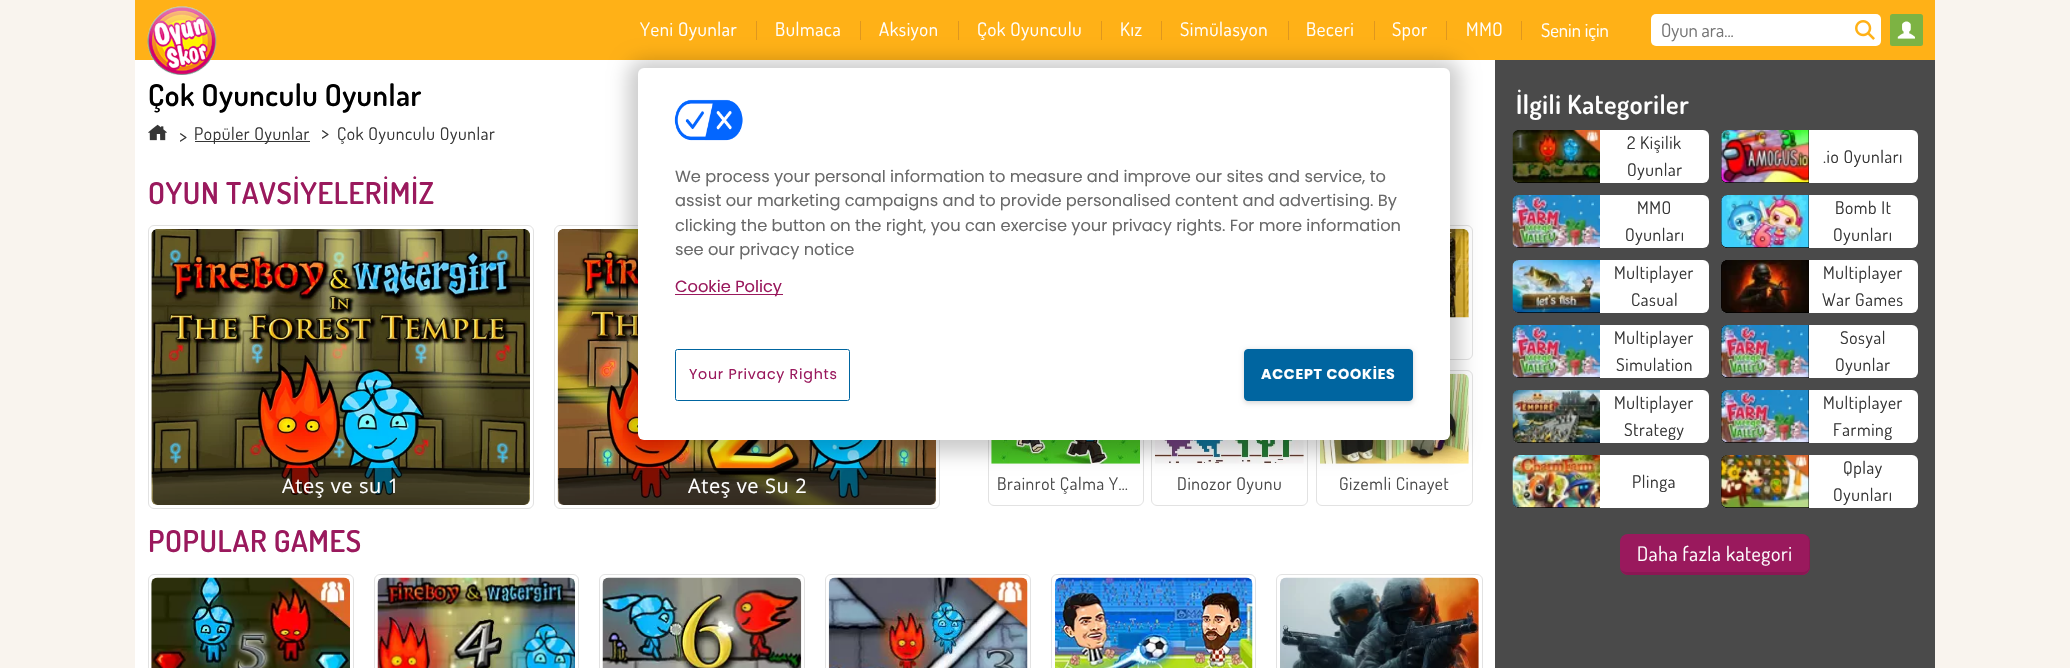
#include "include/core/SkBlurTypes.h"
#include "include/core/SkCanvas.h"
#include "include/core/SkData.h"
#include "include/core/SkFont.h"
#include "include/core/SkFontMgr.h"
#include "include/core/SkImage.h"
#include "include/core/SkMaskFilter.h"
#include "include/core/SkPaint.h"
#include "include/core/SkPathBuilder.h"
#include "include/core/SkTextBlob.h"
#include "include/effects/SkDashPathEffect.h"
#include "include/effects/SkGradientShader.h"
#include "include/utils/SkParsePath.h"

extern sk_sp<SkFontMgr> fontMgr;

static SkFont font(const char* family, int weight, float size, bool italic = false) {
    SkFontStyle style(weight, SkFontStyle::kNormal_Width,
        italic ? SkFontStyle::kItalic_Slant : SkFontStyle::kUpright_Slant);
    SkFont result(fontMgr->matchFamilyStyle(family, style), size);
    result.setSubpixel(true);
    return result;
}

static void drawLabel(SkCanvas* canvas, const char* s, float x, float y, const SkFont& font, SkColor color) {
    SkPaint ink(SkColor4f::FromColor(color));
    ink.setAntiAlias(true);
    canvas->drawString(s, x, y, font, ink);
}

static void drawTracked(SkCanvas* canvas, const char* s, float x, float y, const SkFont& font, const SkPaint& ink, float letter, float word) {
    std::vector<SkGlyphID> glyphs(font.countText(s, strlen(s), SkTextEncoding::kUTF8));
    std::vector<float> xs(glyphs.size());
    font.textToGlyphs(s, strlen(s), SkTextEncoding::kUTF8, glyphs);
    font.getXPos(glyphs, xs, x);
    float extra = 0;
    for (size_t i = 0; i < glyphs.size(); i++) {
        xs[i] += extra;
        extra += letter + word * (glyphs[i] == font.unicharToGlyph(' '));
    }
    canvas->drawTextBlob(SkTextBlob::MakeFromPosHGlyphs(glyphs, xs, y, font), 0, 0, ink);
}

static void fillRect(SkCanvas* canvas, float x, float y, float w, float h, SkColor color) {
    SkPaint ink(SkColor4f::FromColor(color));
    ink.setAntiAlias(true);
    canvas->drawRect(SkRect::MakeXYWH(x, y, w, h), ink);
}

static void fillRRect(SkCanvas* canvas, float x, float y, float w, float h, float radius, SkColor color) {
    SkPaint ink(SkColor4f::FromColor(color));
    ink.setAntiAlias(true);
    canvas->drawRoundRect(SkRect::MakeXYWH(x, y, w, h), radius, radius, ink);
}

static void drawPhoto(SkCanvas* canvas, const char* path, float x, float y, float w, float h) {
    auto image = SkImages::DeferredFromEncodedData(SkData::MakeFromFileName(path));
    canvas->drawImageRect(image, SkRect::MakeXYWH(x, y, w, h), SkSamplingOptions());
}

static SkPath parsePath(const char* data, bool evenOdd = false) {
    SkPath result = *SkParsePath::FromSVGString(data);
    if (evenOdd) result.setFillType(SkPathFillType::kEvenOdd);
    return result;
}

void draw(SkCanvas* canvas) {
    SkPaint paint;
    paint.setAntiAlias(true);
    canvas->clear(0xFFF9F4EE);
    fillRect(canvas, 135, 0, 1800, 60, 0xFFFFB117);
    fillRect(canvas, 135, 60, 1360, 608, 0xFFFFFFFF);
    drawPhoto(canvas, "assets/img1.png", 147, 6, 70, 69);
    SkFont font1 = font("Dosis", 400, 18.75f);
    paint.setColor(0xFFFFFFFF);
    drawTracked(canvas, "Yeni Oyunlar", 640, 36, font1, paint, 0.6f, 0);
    fillRect(canvas, 756, 21, 1, 19, 0xFFDF971F);
    drawTracked(canvas, "Bulmaca", 775, 36, font1, paint, 0.6f, 0);
    fillRect(canvas, 860, 21, 1, 19, 0xFFDF971F);
    drawTracked(canvas, "Aksiyon", 879, 36, font1, paint, 0.6f, 0);
    fillRect(canvas, 958, 21, 1, 19, 0xFFDF971F);
    drawTracked(canvas, "Çok Oyunculu", 977, 36, font1, paint, 0.6f, 0);
    fillRect(canvas, 1101, 21, 1, 19, 0xFFDF971F);
    drawTracked(canvas, "Kız", 1120, 36, font1, paint, 0.6f, 0);
    fillRect(canvas, 1161, 21, 1, 19, 0xFFDF971F);
    drawTracked(canvas, "Simülasyon", 1180, 36, font1, paint, 0.6f, 0);
    fillRect(canvas, 1288, 21, 1, 19, 0xFFDF971F);
    drawTracked(canvas, "Beceri", 1306, 36, font1, paint, 0.6f, 0);
    fillRect(canvas, 1374, 21, 1, 19, 0xFFDF971F);
    drawTracked(canvas, "Spor", 1392, 36, font1, paint, 0.6f, 0);
    fillRect(canvas, 1446, 21, 1, 19, 0xFFDF971F);
    drawTracked(canvas, "MMO", 1466, 36, font1, paint, 0.6f, 0);
    fillRect(canvas, 1521, 21, 1, 19, 0xFFDF971F);
    drawLabel(canvas, "Senin için", 1541, 37, font1, 0xFFFFFFFF);
    fillRRect(canvas, 1890, 14, 33, 32, 2.5f, 0xFF7DB343);
    drawPhoto(canvas, "assets/img2.png", 1897, 21, 18, 18);
    fillRRect(canvas, 1651, 14, 230, 32, 5, 0xFFFFFFFF);
    drawLabel(canvas, "Oyun ara...", 1661, 37, font1, 0xFF757575);
    drawPhoto(canvas, "assets/img3.png", 1855, 20, 20, 20);
    SkFont font2 = font("Dosis", 600, 30);
    paint.setColor(0xFF000000);
    drawTracked(canvas, "Çok Oyunculu Oyunlar", 148, 106, font2, paint, 0.6f, 0);
    drawPhoto(canvas, "assets/img4.png", 148, 124, 19, 17);
    SkFont font3 = font("Dosis", 400, 20);
    paint.setColor(0xFF363636);
    drawTracked(canvas, ">", 179, 143, font3, paint, 0.6f, 0);
    fillRect(canvas, 195, 141, 115, 1, 0xFF363636);
    SkFont font4 = font("Dosis", 400, 17.5f);
    drawTracked(canvas, "Popüler Oyunlar", 194, 140, font4, paint, 0.6f, 0);
    drawTracked(canvas, ">", 321, 140, font3, paint, 0.6f, 0);
    drawTracked(canvas, "Çok Oyunculu Oyunlar", 337, 140, font4, paint, 0.6f, 0);
    paint.setColor(0xFF9A195D);
    drawTracked(canvas, "OYUN TAVSİYELERİMİZ", 148, 204, font2, paint, 0.6f, 0);
    paint.setStroke(true);
    paint.setStrokeWidth(1);
    paint.setColor(0xFFE2E2E2);
    canvas->drawRoundRect(SkRect::MakeXYWH(148.5f, 225.5f, 385, 283), 5.5f, 5.5f, paint);
    drawPhoto(canvas, "assets/img5.png", 151, 229, 379, 276);
    paint.setStroke(false);
    paint.setColor(0x80000000);
    canvas->drawPath(parsePath("M153 468H529V499C529 502.5 526.5 505 523 505H159C155.5 505 153 502.5 153 499Z"), paint);
    SkFont font5 = font("Open Sans", 400, 20);
    paint.setColor(0xFFFFFFFF);
    drawTracked(canvas, "Ateş ve su 1", 282, 493, font5, paint, 0.6f, 0);
    paint.setStroke(true);
    paint.setColor(0xFFE2E2E2);
    canvas->drawRoundRect(SkRect::MakeXYWH(554.5f, 225.5f, 385, 283), 5.5f, 5.5f, paint);
    drawPhoto(canvas, "assets/img6.png", 557, 229, 379, 276);
    paint.setStroke(false);
    paint.setColor(0x80000000);
    canvas->drawPath(parsePath("M559 468H935V499C935 502.5 932.5 505 929 505H565C561.5 505 559 502.5 559 499Z"), paint);
    paint.setColor(0xFFFFFFFF);
    drawTracked(canvas, "Ateş ve Su 2", 688, 493, font5, paint, 0.6f, 0);
    paint.setStroke(true);
    paint.setColor(0xFFE2E2E2);
    canvas->drawRoundRect(SkRect::MakeXYWH(1316.5f, 225.5f, 156, 134), 5.5f, 5.5f, paint);
    drawPhoto(canvas, "assets/img7.png", 1450, 228, 19, 90);
    canvas->drawRoundRect(SkRect::MakeXYWH(988.5f, 370.5f, 155, 135), 5.5f, 5.5f, paint);
    drawPhoto(canvas, "assets/img8.png", 991, 440, 149, 24);
    paint.setStroke(false);
    paint.setColor(0xFF4A4A4A);
    drawTracked(canvas, "Brainrot Çalma Y…", 997, 490, font4, paint, 0.6f, 0);
    paint.setStroke(true);
    paint.setColor(0xFFE2E2E2);
    canvas->drawRoundRect(SkRect::MakeXYWH(1151.5f, 370.5f, 156, 135), 5.5f, 5.5f, paint);
    drawPhoto(canvas, "assets/img9.png", 1155, 440, 149, 24);
    paint.setStroke(false);
    paint.setColor(0xFF4A4A4A);
    drawTracked(canvas, "Dinozor Oyunu", 1177, 490, font4, paint, 0.6f, 0);
    paint.setStroke(true);
    paint.setColor(0xFFE2E2E2);
    canvas->drawRoundRect(SkRect::MakeXYWH(1316.5f, 370.5f, 156, 135), 5.5f, 5.5f, paint);
    drawPhoto(canvas, "assets/img10.png", 1320, 373, 149, 91);
    paint.setStroke(false);
    paint.setColor(0xFF4A4A4A);
    drawTracked(canvas, "Gizemli Cinayet", 1339, 490, font4, paint, 0.6f, 0);
    paint.setColor(0xFF9A195D);
    drawTracked(canvas, "POPULAR GAMES", 148, 552, font2, paint, 0.6f, 0);
    paint.setStroke(true);
    paint.setColor(0xFFE2E2E2);
    canvas->drawRoundRect(SkRect::MakeXYWH(148.5f, 574.5f, 205, 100), 5.5f, 5.5f, paint);
    drawPhoto(canvas, "assets/img11.png", 151, 577, 199, 91);
    canvas->drawRoundRect(SkRect::MakeXYWH(374.5f, 574.5f, 204, 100), 5.5f, 5.5f, paint);
    drawPhoto(canvas, "assets/img12.png", 377, 577, 198, 91);
    canvas->drawRoundRect(SkRect::MakeXYWH(599.5f, 574.5f, 205, 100), 5.5f, 5.5f, paint);
    drawPhoto(canvas, "assets/img13.png", 602, 577, 200, 91);
    canvas->drawRoundRect(SkRect::MakeXYWH(825.5f, 574.5f, 205, 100), 5.5f, 5.5f, paint);
    drawPhoto(canvas, "assets/img14.png", 828, 577, 200, 91);
    canvas->drawRoundRect(SkRect::MakeXYWH(1051.5f, 574.5f, 204, 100), 5.5f, 5.5f, paint);
    drawPhoto(canvas, "assets/img15.png", 1055, 577, 198, 91);
    canvas->drawRoundRect(SkRect::MakeXYWH(1276.5f, 574.5f, 206, 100), 5.5f, 5.5f, paint);
    drawPhoto(canvas, "assets/img16.png", 1280, 577, 199, 91);
    fillRect(canvas, 1495, 60, 440, 608, 0xFF4A4A4A);
    SkFont font6 = font("Dosis", 600, 26.25f);
    paint.setStroke(false);
    paint.setColor(0xFFFFFFFF);
    drawTracked(canvas, "İlgili Kategoriler", 1516, 114, font6, paint, 0.6f, 0);
    fillRRect(canvas, 1513, 130, 196, 53, 6, 0xFFFFFFFF);
    paint.setColor(0xFF000000);
    canvas->drawPath(parsePath("M1519 130H1600V183H1519C1515.5 183 1513 180.5 1513 177V136C1513 132.5 1515.5 130 1519 130Z"), paint);
    drawPhoto(canvas, "assets/img17.png", 1512, 130, 88, 53);
    paint.setColor(0xFF363636);
    drawTracked(canvas, "2 Kişilik", 1627, 149, font4, paint, 0.6f, 0);
    drawTracked(canvas, "Oyunlar", 1627, 176, font4, paint, 0.6f, 0);
    fillRRect(canvas, 1721, 130, 197, 53, 6, 0xFFFFFFFF);
    paint.setColor(0xFF000000);
    canvas->drawPath(parsePath("M1727 130H1809V183H1727C1723.5 183 1721 180.5 1721 177V136C1721 132.5 1723.5 130 1727 130Z"), paint);
    drawPhoto(canvas, "assets/img18.png", 1721, 130, 88, 53);
    paint.setColor(0xFF363636);
    drawTracked(canvas, ".io Oyunları", 1823, 163, font4, paint, 0.6f, 0);
    fillRRect(canvas, 1513, 195, 196, 53, 6, 0xFFFFFFFF);
    paint.setColor(0xFF000000);
    canvas->drawPath(parsePath("M1519 195H1600V248H1519C1515.5 248 1513 245.5 1513 242V201C1513 197.5 1515.5 195 1519 195Z"), paint);
    drawPhoto(canvas, "assets/img19.png", 1512, 195, 88, 53);
    paint.setColor(0xFF363636);
    drawTracked(canvas, "MMO", 1637, 214, font4, paint, 0.6f, 0);
    drawTracked(canvas, "Oyunları", 1625, 241, font4, paint, 0.6f, 0);
    fillRRect(canvas, 1721, 195, 197, 53, 6, 0xFFFFFFFF);
    paint.setColor(0xFF000000);
    canvas->drawPath(parsePath("M1727 195H1809V248H1727C1723.5 248 1721 245.5 1721 242V201C1721 197.5 1723.5 195 1727 195Z"), paint);
    drawPhoto(canvas, "assets/img20.png", 1721, 195, 88, 53);
    paint.setColor(0xFF363636);
    drawTracked(canvas, "Bomb It", 1835, 214, font4, paint, 0.6f, 0);
    drawTracked(canvas, "Oyunları", 1833, 241, font4, paint, 0.6f, 0);
    fillRRect(canvas, 1513, 260, 196, 53, 6, 0xFFFFFFFF);
    paint.setColor(0xFF000000);
    canvas->drawPath(parsePath("M1519 260H1600V313H1519C1515.5 313 1513 310.5 1513 307V266C1513 262.5 1515.5 260 1519 260Z"), paint);
    drawPhoto(canvas, "assets/img21.png", 1512, 260, 88, 53);
    paint.setColor(0xFF363636);
    drawTracked(canvas, "Multiplayer", 1614, 279, font4, paint, 0.6f, 0);
    drawTracked(canvas, "Casual", 1631, 306, font4, paint, 0.6f, 0);
    fillRRect(canvas, 1721, 260, 197, 53, 6, 0xFFFFFFFF);
    paint.setColor(0xFF000000);
    canvas->drawPath(parsePath("M1727 260H1809V313H1727C1723.5 313 1721 310.5 1721 307V266C1721 262.5 1723.5 260 1727 260Z"), paint);
    drawPhoto(canvas, "assets/img22.png", 1721, 260, 88, 53);
    paint.setColor(0xFF363636);
    drawTracked(canvas, "Multiplayer", 1823, 279, font4, paint, 0.6f, 0);
    drawTracked(canvas, "War Games", 1822, 306, font4, paint, 0.6f, 0);
    fillRRect(canvas, 1513, 325, 196, 53, 6, 0xFFFFFFFF);
    paint.setColor(0xFF000000);
    canvas->drawPath(parsePath("M1519 325H1600V378H1519C1515.5 378 1513 375.5 1513 372V331C1513 327.5 1515.5 325 1519 325Z"), paint);
    drawPhoto(canvas, "assets/img19.png", 1512, 325, 88, 53);
    paint.setColor(0xFF363636);
    drawTracked(canvas, "Multiplayer", 1614, 344, font4, paint, 0.6f, 0);
    drawTracked(canvas, "Simulation", 1616, 371, font4, paint, 0.6f, 0);
    fillRRect(canvas, 1721, 325, 197, 53, 6, 0xFFFFFFFF);
    paint.setColor(0xFF000000);
    canvas->drawPath(parsePath("M1727 325H1809V378H1727C1723.5 378 1721 375.5 1721 372V331C1721 327.5 1723.5 325 1727 325Z"), paint);
    drawPhoto(canvas, "assets/img23.png", 1721, 325, 88, 53);
    paint.setColor(0xFF363636);
    drawTracked(canvas, "Sosyal", 1840, 344, font4, paint, 0.6f, 0);
    drawTracked(canvas, "Oyunlar", 1835, 371, font4, paint, 0.6f, 0);
    fillRRect(canvas, 1513, 390, 196, 53, 6, 0xFFFFFFFF);
    paint.setColor(0xFF000000);
    canvas->drawPath(parsePath("M1519 390H1600V443H1519C1515.5 443 1513 440.5 1513 437V396C1513 392.5 1515.5 390 1519 390Z"), paint);
    drawPhoto(canvas, "assets/img24.png", 1512, 390, 88, 53);
    paint.setColor(0xFF363636);
    drawTracked(canvas, "Multiplayer", 1614, 409, font4, paint, 0.6f, 0);
    drawTracked(canvas, "Strategy", 1624, 436, font4, paint, 0.6f, 0);
    fillRRect(canvas, 1721, 390, 197, 53, 6, 0xFFFFFFFF);
    paint.setColor(0xFF000000);
    canvas->drawPath(parsePath("M1727 390H1809V443H1727C1723.5 443 1721 440.5 1721 437V396C1721 392.5 1723.5 390 1727 390Z"), paint);
    drawPhoto(canvas, "assets/img23.png", 1721, 390, 88, 53);
    paint.setColor(0xFF363636);
    drawTracked(canvas, "Multiplayer", 1823, 409, font4, paint, 0.6f, 0);
    drawTracked(canvas, "Farming", 1833, 436, font4, paint, 0.6f, 0);
    fillRRect(canvas, 1513, 455, 196, 53, 6, 0xFFFFFFFF);
    paint.setColor(0xFF000000);
    canvas->drawPath(parsePath("M1519 455H1600V508H1519C1515.5 508 1513 505.5 1513 502V461C1513 457.5 1515.5 455 1519 455Z"), paint);
    drawPhoto(canvas, "assets/img25.png", 1512, 455, 88, 53);
    paint.setColor(0xFF363636);
    drawTracked(canvas, "Plinga", 1632, 488, font4, paint, 0.6f, 0);
    fillRRect(canvas, 1721, 455, 197, 53, 6, 0xFFFFFFFF);
    paint.setColor(0xFF000000);
    canvas->drawPath(parsePath("M1727 455H1809V508H1727C1723.5 508 1721 505.5 1721 502V461C1721 457.5 1723.5 455 1727 455Z"), paint);
    drawPhoto(canvas, "assets/img26.png", 1721, 455, 88, 53);
    paint.setColor(0xFF363636);
    drawTracked(canvas, "Qplay", 1843, 474, font4, paint, 0.6f, 0);
    drawTracked(canvas, "Oyunları", 1833, 501, font4, paint, 0.6f, 0);
    fillRRect(canvas, 1620, 534, 190, 41, 8, 0xFF9A195D);
    paint.setColor(0xFF8B1754);
    canvas->drawPath(parsePath("M1628 534H1802C1806 534 1810 537 1810 542V567C1810 571 1806 575 1802 575H1628C1624 575 1620 571 1620 567V542C1620 537 1624 534 1628 534ZM1628 534H1802C1806 534 1809 537 1809 542V567C1809 570 1806 572 1802 572H1628C1624 572 1620 570 1620 567V542C1620 537 1624 534 1628 534Z", true), paint);
    paint.setColor(0xFFFFFFFF);
    drawTracked(canvas, "Daha fazla kategori", 1637, 561, font3, paint, 0.6f, 0);
    paint.setColor(0x33000000);
    paint.setMaskFilter(SkMaskFilter::MakeBlur(kNormal_SkBlurStyle, 9.5f));
    canvas->drawRoundRect(SkRect::MakeXYWH(628, 60, 832, 393), 16, 16, paint);
    paint.setMaskFilter(nullptr);
    fillRRect(canvas, 638, 68, 812, 372, 6, 0xFFFFFFFF);
    drawPhoto(canvas, "assets/img27.png", 674, 99, 69, 42);
    SkFont font7 = font("Poppins", 400, 16.25f);
    drawLabel(canvas, "We process your personal information to measure and improve our sites and service, to", 675, 182, font7, 0xFF696969);
    drawLabel(canvas, "assist our marketing campaigns and to provide personalised content and advertising. By", 675, 206, font7, 0xFF696969);
    drawLabel(canvas, "clicking the button on the right, you can exercise your privacy rights. For more information", 675, 231, font7, 0xFF696969);
    drawLabel(canvas, "see our privacy notice", 675, 255, font7, 0xFF696969);
    fillRect(canvas, 675, 294, 108, 1, 0xFF9A195D);
    drawLabel(canvas, "Cookie Policy", 675, 292, font7, 0xFF9A195D);
    paint.setStroke(true);
    paint.setColor(0xFF0065A0);
    canvas->drawRoundRect(SkRect::MakeXYWH(675.5f, 349.5f, 174, 51), 2, 2, paint);
    SkFont font8 = font("Poppins", 400, 14.25f);
    paint.setStroke(false);
    paint.setColor(0xFF9A195D);
    drawTracked(canvas, "Your Privacy Rights", 689, 379, font8, paint, 0.75f, 0);
    paint.setColor(0x29000000);
    paint.setMaskFilter(SkMaskFilter::MakeBlur(kNormal_SkBlurStyle, 2.5f));
    canvas->drawRoundRect(SkRect::MakeXYWH(1244, 350, 169, 53), 4, 4, paint);
    paint.setMaskFilter(nullptr);
    paint.setColor(0xFF0065A0);
    canvas->drawRoundRect(SkRect::MakeXYWH(1244.5f, 349.5f, 168, 51), 3.5f, 3.5f, paint);
    paint.setStroke(true);
    canvas->drawRoundRect(SkRect::MakeXYWH(1244.5f, 349.5f, 168, 51), 3.5f, 3.5f, paint);
    SkFont font9 = font("Poppins", 700, 14.25f);
    paint.setStroke(false);
    paint.setColor(0xFFFFFFFF);
    drawTracked(canvas, "ACCEPT COOKİES", 1261, 379, font9, paint, 0.75f, 0);
}
